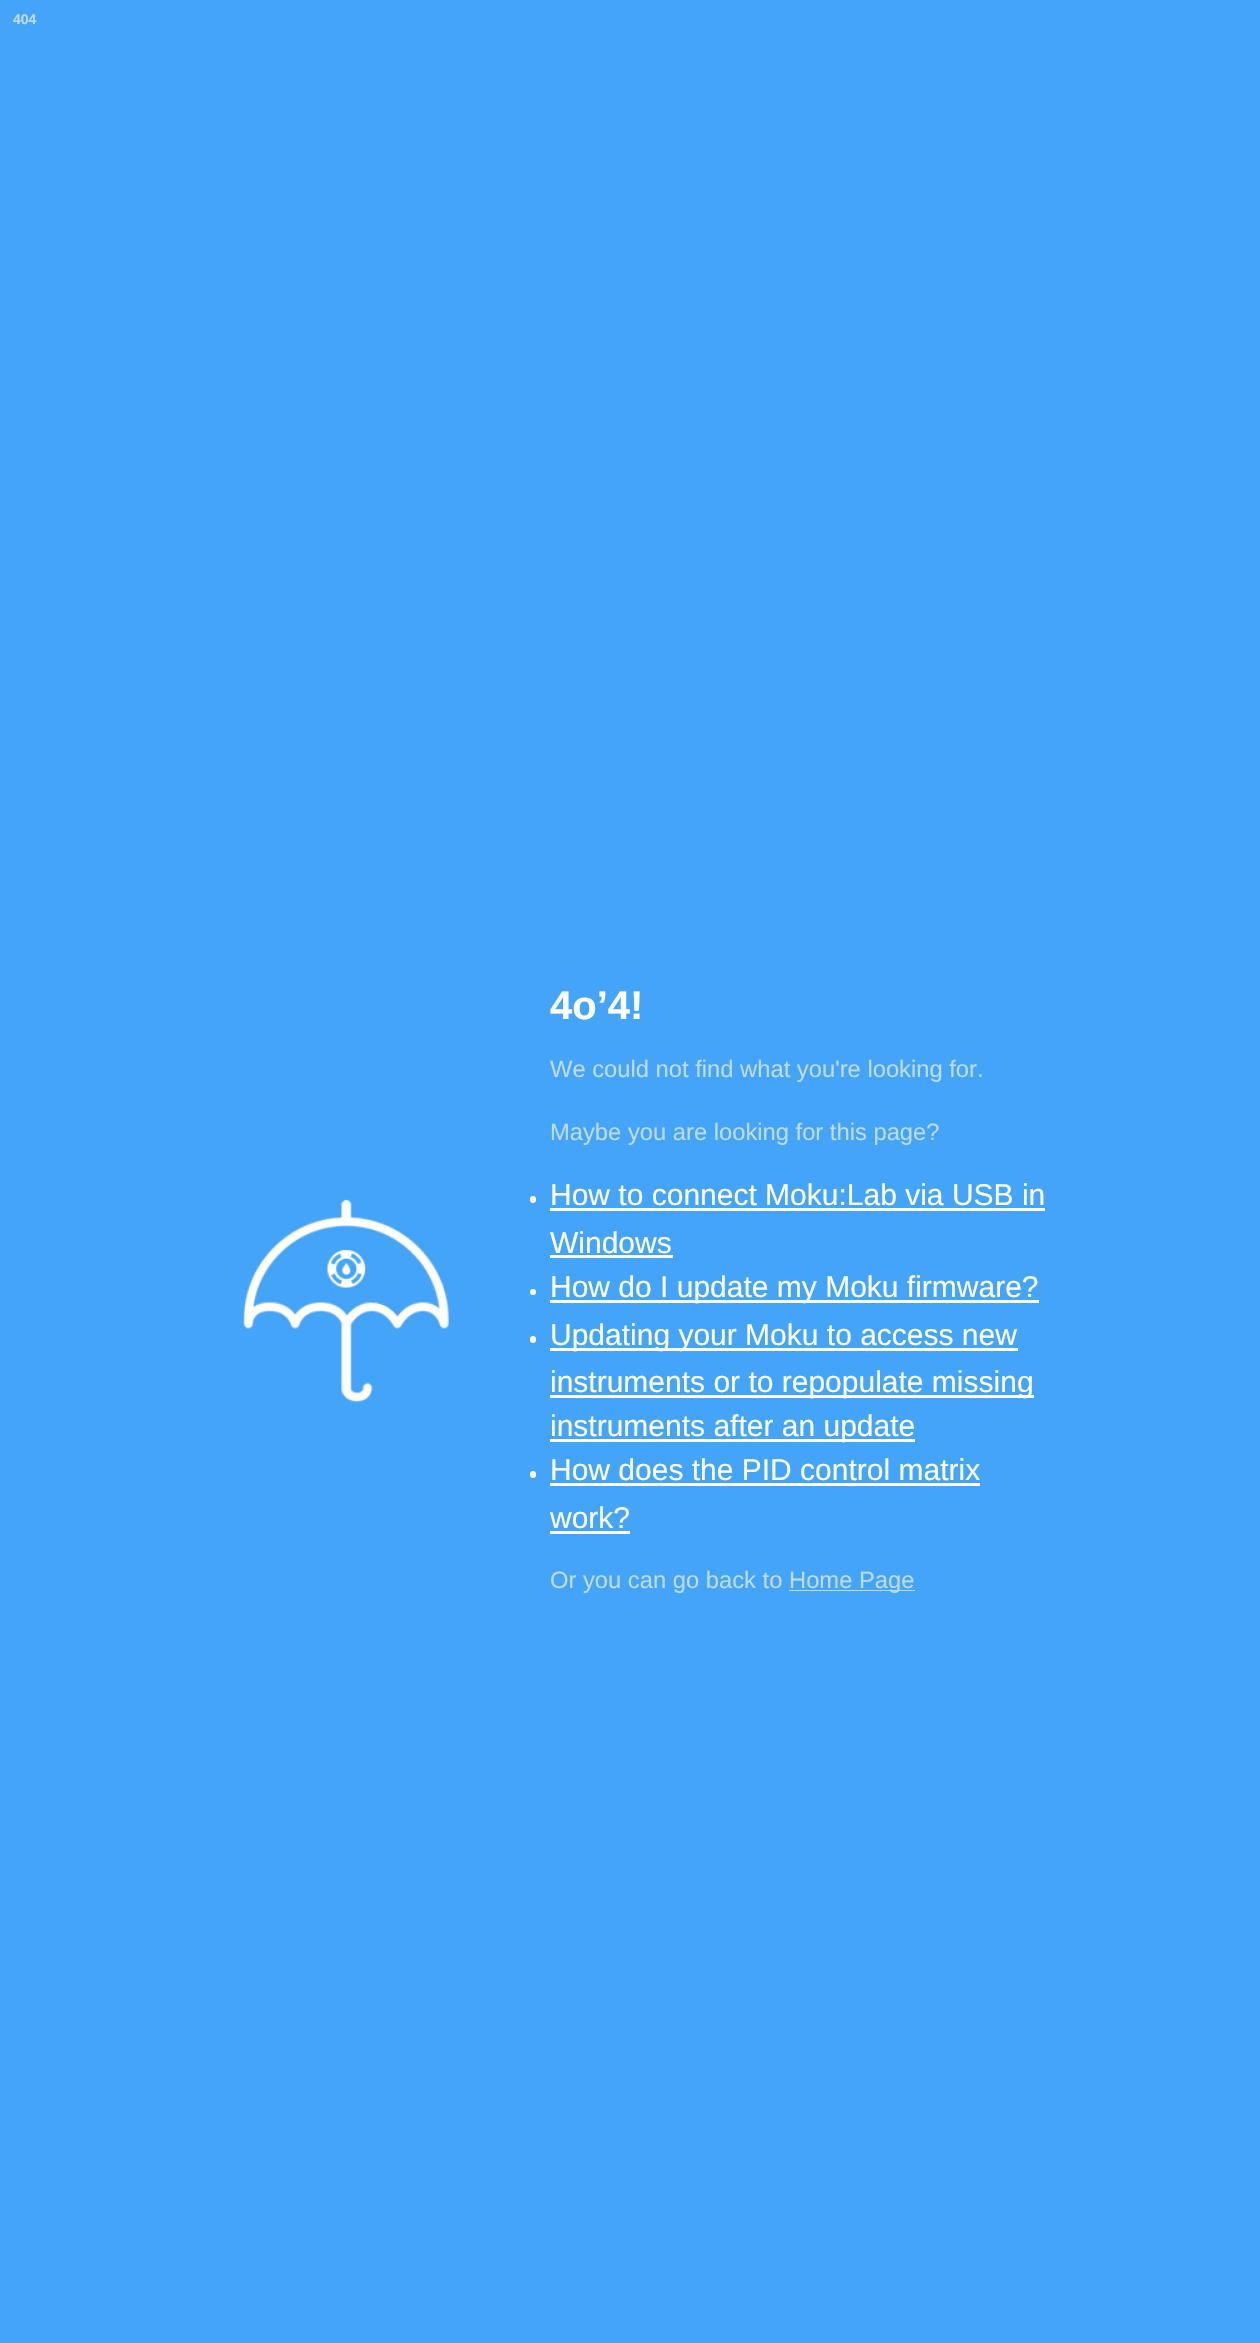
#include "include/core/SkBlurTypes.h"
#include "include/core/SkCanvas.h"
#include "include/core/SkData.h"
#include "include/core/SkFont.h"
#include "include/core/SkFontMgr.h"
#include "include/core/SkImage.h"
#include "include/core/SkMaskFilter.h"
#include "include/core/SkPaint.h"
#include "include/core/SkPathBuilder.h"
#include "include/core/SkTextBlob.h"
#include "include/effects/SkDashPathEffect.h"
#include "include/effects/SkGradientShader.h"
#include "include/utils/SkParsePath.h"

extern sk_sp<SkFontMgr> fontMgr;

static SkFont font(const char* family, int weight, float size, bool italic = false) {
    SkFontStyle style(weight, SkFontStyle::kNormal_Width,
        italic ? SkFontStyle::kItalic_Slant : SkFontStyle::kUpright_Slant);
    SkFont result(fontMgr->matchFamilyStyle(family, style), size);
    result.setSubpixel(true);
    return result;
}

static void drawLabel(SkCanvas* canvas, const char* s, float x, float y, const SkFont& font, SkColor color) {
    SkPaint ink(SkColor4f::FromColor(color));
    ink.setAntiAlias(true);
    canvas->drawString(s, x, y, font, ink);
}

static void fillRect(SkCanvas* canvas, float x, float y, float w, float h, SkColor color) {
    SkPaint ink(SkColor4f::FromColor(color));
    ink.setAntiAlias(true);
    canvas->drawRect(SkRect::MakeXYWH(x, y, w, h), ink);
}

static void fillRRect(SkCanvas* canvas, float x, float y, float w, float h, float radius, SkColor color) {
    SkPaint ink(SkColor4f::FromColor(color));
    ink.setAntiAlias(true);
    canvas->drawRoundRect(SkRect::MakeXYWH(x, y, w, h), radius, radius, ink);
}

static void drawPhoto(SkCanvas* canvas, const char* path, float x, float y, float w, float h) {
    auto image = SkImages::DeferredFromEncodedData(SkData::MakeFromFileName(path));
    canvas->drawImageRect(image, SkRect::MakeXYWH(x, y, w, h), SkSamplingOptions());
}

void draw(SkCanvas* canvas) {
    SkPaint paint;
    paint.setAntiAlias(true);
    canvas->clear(0xFF44A4F8);
    SkFont font1 = font("Liberation Sans", 700, 14);
    drawLabel(canvas, "404", 13, 24, font1, 0xFFBEDCE8);
    drawPhoto(canvas, "assets/img1.png", 243, 1199, 206, 203);
    SkFont font2 = font("Liberation Sans", 700, 40);
    drawLabel(canvas, "4o’4!", 550, 1019, font2, 0xFFFFFFFF);
    SkFont font3 = font("Liberation Sans", 400, 23.75f);
    drawLabel(canvas, "We could not find what you're looking for.", 550, 1077, font3, 0xFFBEDCE8);
    drawLabel(canvas, "Maybe you are looking for this page?", 550, 1140, font3, 0xFFBEDCE8);
    fillRRect(canvas, 530, 1196, 6, 7, 3, 0xFFFFFFFF);
    SkFont font4 = font("Liberation Sans", 400, 30);
    drawLabel(canvas, "How to connect Moku:Lab via USB in", 550, 1205, font4, 0xFFFFFFFF);
    fillRect(canvas, 550, 1208, 495, 3, 0xFFFFFFFF);
    drawLabel(canvas, "Windows", 550, 1253, font4, 0xFFFFFFFF);
    fillRect(canvas, 550, 1255, 123, 3, 0xFFFFFFFF);
    paint.setColor(0xFFFFFFFF);
    canvas->drawCircle(533, 1292, 3, paint);
    fillRect(canvas, 550, 1300, 489, 3, 0xFFFFFFFF);
    drawLabel(canvas, "How do I update my Moku firmware?", 550, 1297, font4, 0xFFFFFFFF);
    fillRRect(canvas, 530, 1336, 6, 7, 3, 0xFFFFFFFF);
    fillRect(canvas, 550, 1348, 468, 3, 0xFFFFFFFF);
    drawLabel(canvas, "Updating your Moku to access new", 550, 1345, font4, 0xFFFFFFFF);
    fillRect(canvas, 550, 1395, 484, 3, 0xFFFFFFFF);
    drawLabel(canvas, "instruments or to repopulate missing", 550, 1392, font4, 0xFFFFFFFF);
    fillRect(canvas, 550, 1439, 365, 3, 0xFFFFFFFF);
    drawLabel(canvas, "instruments after an update", 550, 1436, font4, 0xFFFFFFFF);
    fillRRect(canvas, 530, 1471, 6, 7, 3, 0xFFFFFFFF);
    drawLabel(canvas, "How does the PID control matrix", 550, 1480, font4, 0xFFFFFFFF);
    fillRect(canvas, 550, 1483, 430, 3, 0xFFFFFFFF);
    drawLabel(canvas, "work?", 550, 1528, font4, 0xFFFFFFFF);
    fillRect(canvas, 550, 1531, 80, 3, 0xFFFFFFFF);
    drawLabel(canvas, "Or you can go back to", 550, 1588, font3, 0xFFBEDCE8);
    fillRect(canvas, 789, 1590, 126, 1, 0xFFBEDCE8);
    drawLabel(canvas, "Home Page", 789, 1588, font3, 0xFFBEDCE8);
}
